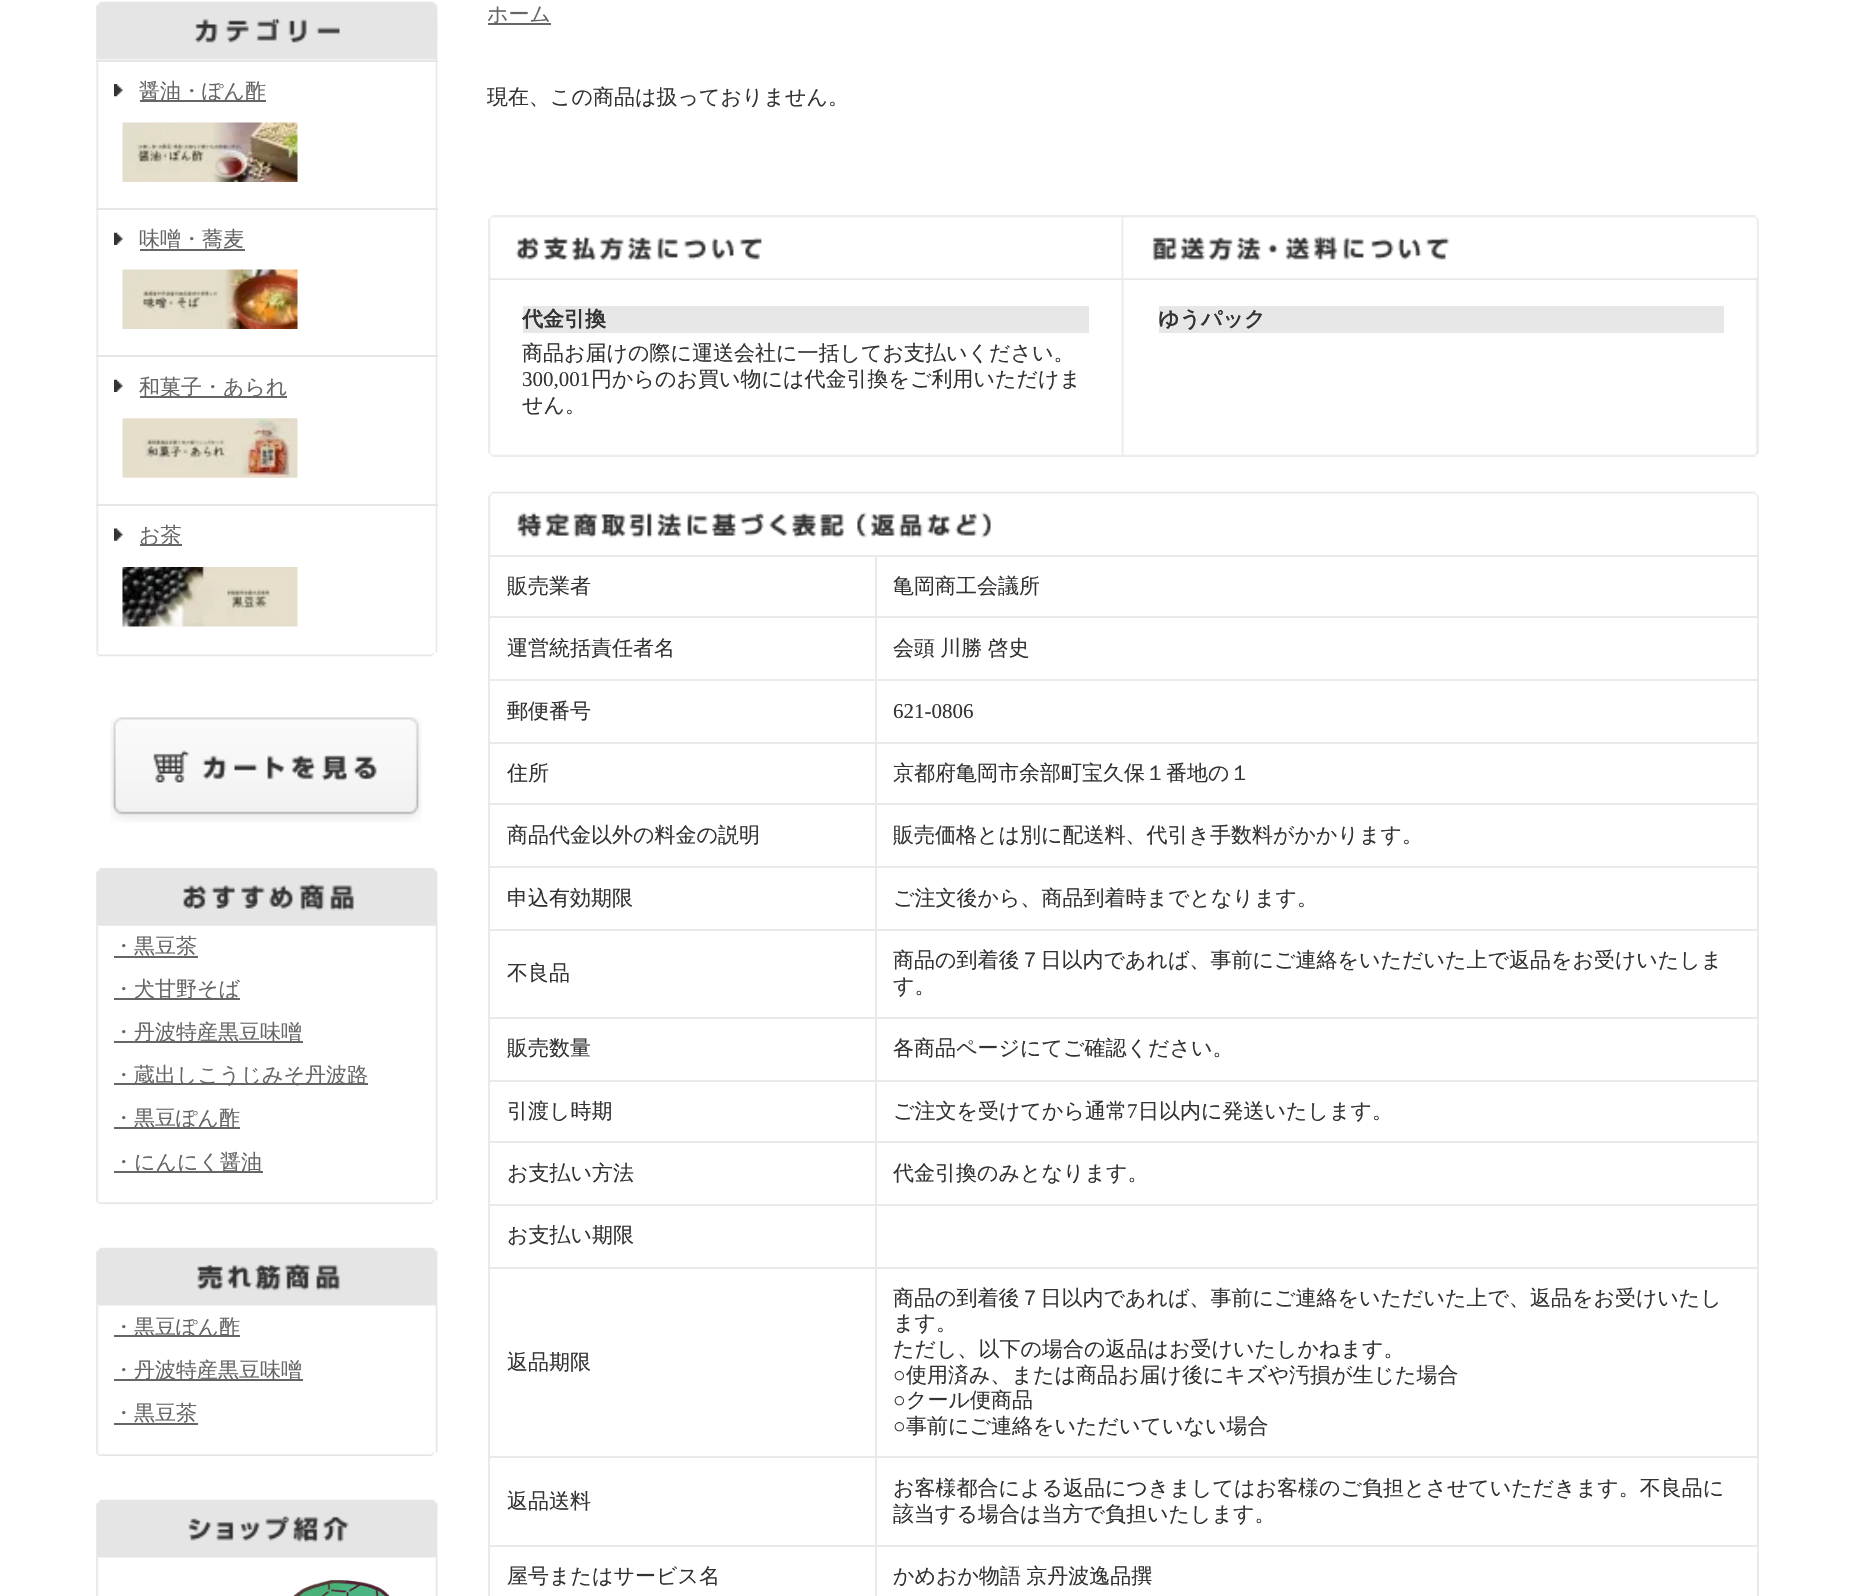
#include "include/core/SkBlurTypes.h"
#include "include/core/SkCanvas.h"
#include "include/core/SkData.h"
#include "include/core/SkFont.h"
#include "include/core/SkFontMgr.h"
#include "include/core/SkImage.h"
#include "include/core/SkMaskFilter.h"
#include "include/core/SkPaint.h"
#include "include/core/SkPathBuilder.h"
#include "include/core/SkTextBlob.h"
#include "include/effects/SkDashPathEffect.h"
#include "include/effects/SkGradientShader.h"
#include "include/utils/SkParsePath.h"

extern sk_sp<SkFontMgr> fontMgr;

static SkFont font(const char* family, int weight, float size, bool italic = false) {
    SkFontStyle style(weight, SkFontStyle::kNormal_Width,
        italic ? SkFontStyle::kItalic_Slant : SkFontStyle::kUpright_Slant);
    SkFont result(fontMgr->matchFamilyStyle(family, style), size);
    result.setSubpixel(true);
    return result;
}

static void drawLabel(SkCanvas* canvas, const char* s, float x, float y, const SkFont& font, SkColor color) {
    SkPaint ink(SkColor4f::FromColor(color));
    ink.setAntiAlias(true);
    canvas->drawString(s, x, y, font, ink);
}

static void drawTracked(SkCanvas* canvas, const char* s, float x, float y, const SkFont& font, const SkPaint& ink, float letter, float word) {
    std::vector<SkGlyphID> glyphs(font.countText(s, strlen(s), SkTextEncoding::kUTF8));
    std::vector<float> xs(glyphs.size());
    font.textToGlyphs(s, strlen(s), SkTextEncoding::kUTF8, glyphs);
    font.getXPos(glyphs, xs, x);
    float extra = 0;
    for (size_t i = 0; i < glyphs.size(); i++) {
        xs[i] += extra;
        extra += letter + word * (glyphs[i] == font.unicharToGlyph(' '));
    }
    canvas->drawTextBlob(SkTextBlob::MakeFromPosHGlyphs(glyphs, xs, y, font), 0, 0, ink);
}

static void fillRect(SkCanvas* canvas, float x, float y, float w, float h, SkColor color) {
    SkPaint ink(SkColor4f::FromColor(color));
    ink.setAntiAlias(true);
    canvas->drawRect(SkRect::MakeXYWH(x, y, w, h), ink);
}

static void drawPhoto(SkCanvas* canvas, const char* path, float x, float y, float w, float h) {
    auto image = SkImages::DeferredFromEncodedData(SkData::MakeFromFileName(path));
    canvas->drawImageRect(image, SkRect::MakeXYWH(x, y, w, h), SkSamplingOptions());
}

void draw(SkCanvas* canvas) {
    SkPaint paint;
    paint.setAntiAlias(true);
    canvas->clear(0xFFFFFFFF);
    drawPhoto(canvas, "assets/img1.png", 96, 1, 342, 59);
    drawPhoto(canvas, "assets/img2.png", 96, 62, 342, 146);
    fillRect(canvas, 96, 60, 342, 2, 0xFFE6E6E6);
    drawPhoto(canvas, "assets/img3.png", 114, 84, 9, 13);
    fillRect(canvas, 140, 100, 126, 2, 0xFF666666);
    SkFont font1 = font("WenQuanYi Zen Hei", 500, 21);
    drawLabel(canvas, "醤油・ぽん酢", 139, 98, font1, 0xFF666666);
    drawPhoto(canvas, "assets/img4.png", 122, 122, 176, 60);
    drawPhoto(canvas, "assets/img5.png", 96, 210, 342, 145);
    fillRect(canvas, 96, 208, 342, 2, 0xFFE6E6E6);
    drawPhoto(canvas, "assets/img6.png", 114, 232, 9, 13);
    drawLabel(canvas, "味噌・蕎麦", 139, 246, font1, 0xFF666666);
    fillRect(canvas, 140, 249, 105, 2, 0xFF666666);
    drawPhoto(canvas, "assets/img7.png", 122, 269, 176, 60);
    drawPhoto(canvas, "assets/img8.png", 96, 357, 342, 147);
    fillRect(canvas, 96, 355, 342, 2, 0xFFE6E6E6);
    drawPhoto(canvas, "assets/img6.png", 114, 379, 9, 13);
    fillRect(canvas, 140, 396, 147, 2, 0xFF666666);
    drawLabel(canvas, "和菓子・あられ", 139, 394, font1, 0xFF666666);
    drawPhoto(canvas, "assets/img9.png", 122, 418, 176, 60);
    drawPhoto(canvas, "assets/img10.png", 96, 506, 342, 147);
    fillRect(canvas, 96, 504, 342, 2, 0xFFE6E6E6);
    drawPhoto(canvas, "assets/img11.png", 114, 528, 9, 13);
    fillRect(canvas, 140, 544, 42, 2, 0xFF666666);
    drawLabel(canvas, "お茶", 139, 542, font1, 0xFF666666);
    drawPhoto(canvas, "assets/img12.png", 122, 567, 176, 60);
    drawPhoto(canvas, "assets/img13.png", 96, 653, 339, 4);
    drawPhoto(canvas, "assets/img14.png", 110, 717, 312, 106);
    drawPhoto(canvas, "assets/img16.png", 96, 925, 342, 276);
    drawPhoto(canvas, "assets/img15.png", 96, 868, 342, 58);
    drawLabel(canvas, "・黒豆茶", 113, 953, font1, 0xFF666666);
    fillRect(canvas, 114, 956, 84, 2, 0xFF666666);
    fillRect(canvas, 114, 998, 126, 2, 0xFF666666);
    drawLabel(canvas, "・犬甘野そば", 113, 996, font1, 0xFF666666);
    fillRect(canvas, 114, 1041, 189, 2, 0xFF666666);
    drawLabel(canvas, "・丹波特産黒豆味噌", 113, 1039, font1, 0xFF666666);
    fillRect(canvas, 114, 1083, 254, 2, 0xFF666666);
    drawLabel(canvas, "・蔵出しこうじみそ丹波路", 113, 1082, font1, 0xFF666666);
    fillRect(canvas, 114, 1127, 126, 2, 0xFF666666);
    drawLabel(canvas, "・黒豆ぽん酢", 113, 1125, font1, 0xFF666666);
    fillRect(canvas, 114, 1171, 149, 2, 0xFF666666);
    drawLabel(canvas, "・にんにく醤油", 113, 1169, font1, 0xFF666666);
    drawPhoto(canvas, "assets/img17.png", 96, 1200, 339, 4);
    drawPhoto(canvas, "assets/img19.png", 96, 1305, 342, 148);
    drawPhoto(canvas, "assets/img18.png", 96, 1247, 342, 59);
    fillRect(canvas, 114, 1335, 126, 2, 0xFF666666);
    drawLabel(canvas, "・黒豆ぽん酢", 113, 1334, font1, 0xFF666666);
    fillRect(canvas, 114, 1379, 189, 2, 0xFF666666);
    drawLabel(canvas, "・丹波特産黒豆味噌", 113, 1377, font1, 0xFF666666);
    drawLabel(canvas, "・黒豆茶", 113, 1420, font1, 0xFF666666);
    fillRect(canvas, 114, 1423, 84, 2, 0xFF666666);
    drawPhoto(canvas, "assets/img17.png", 96, 1452, 339, 4);
    drawPhoto(canvas, "assets/img21.png", 96, 1557, 342, 39);
    drawPhoto(canvas, "assets/img20.png", 96, 1499, 342, 59);
    drawPhoto(canvas, "assets/img22.png", 293, 1580, 97, 16);
    fillRect(canvas, 488, 23, 63, 2, 0xFF666666);
    drawLabel(canvas, "ホーム", 487, 21, font1, 0xFF666666);
    drawLabel(canvas, "現在、この商品は扱っておりません。", 487, 104, font1, 0xFF333333);
    drawPhoto(canvas, "assets/img23.png", 488, 215, 636, 65);
    drawPhoto(canvas, "assets/img24.png", 1123, 215, 636, 65);
    drawPhoto(canvas, "assets/img25.png", 488, 280, 636, 174);
    fillRect(canvas, 523, 306, 566, 27, 0xFFE7E7E7);
    SkFont font2 = font("WenQuanYi Zen Hei", 700, 21);
    drawLabel(canvas, "代金引換", 522, 326, font2, 0xFF333333);
    drawLabel(canvas, "商品お届けの際に運送会社に一括してお支払いください。", 522, 360, font1, 0xFF333333);
    SkFont font3 = font("Liberation Serif", 400, 21);
    drawLabel(canvas, "300,001", 522, 386, font3, 0xFF333333);
    drawLabel(canvas, "円からのお買い物には代金引換をご利用いただけま", 591, 386, font1, 0xFF333333);
    drawLabel(canvas, "せん。", 522, 412, font1, 0xFF333333);
    fillRect(canvas, 1756, 280, 3, 174, 0xFFEDEDED);
    fillRect(canvas, 1159, 306, 565, 27, 0xFFE7E7E7);
    drawLabel(canvas, "ゆうパック", 1158, 326, font2, 0xFF333333);
    drawPhoto(canvas, "assets/img26.png", 490, 453, 1268, 4);
    drawPhoto(canvas, "assets/img27.png", 488, 491, 1271, 64);
    fillRect(canvas, 488, 555, 1271, 2, 0xFFEAEAEA);
    fillRect(canvas, 875, 1545, 2, 51, 0xFFEAEAEA);
    fillRect(canvas, 1757, 555, 2, 1041, 0xFFEAEAEA);
    fillRect(canvas, 875, 1545, 884, 2, 0xFFEAEAEA);
    fillRect(canvas, 875, 1456, 2, 91, 0xFFEAEAEA);
    fillRect(canvas, 875, 1456, 884, 2, 0xFFEAEAEA);
    fillRect(canvas, 875, 1267, 2, 191, 0xFFEAEAEA);
    fillRect(canvas, 875, 1267, 884, 2, 0xFFEAEAEA);
    fillRect(canvas, 875, 1204, 2, 65, 0xFFEAEAEA);
    fillRect(canvas, 875, 1204, 884, 2, 0xFFEAEAEA);
    fillRect(canvas, 875, 1141, 2, 65, 0xFFEAEAEA);
    fillRect(canvas, 875, 1141, 884, 2, 0xFFEAEAEA);
    fillRect(canvas, 875, 1080, 2, 63, 0xFFEAEAEA);
    fillRect(canvas, 875, 1080, 884, 2, 0xFFEAEAEA);
    fillRect(canvas, 875, 1017, 2, 65, 0xFFEAEAEA);
    fillRect(canvas, 875, 1017, 884, 2, 0xFFEAEAEA);
    fillRect(canvas, 875, 929, 2, 90, 0xFFEAEAEA);
    fillRect(canvas, 875, 929, 884, 2, 0xFFEAEAEA);
    fillRect(canvas, 875, 866, 2, 65, 0xFFEAEAEA);
    fillRect(canvas, 875, 866, 884, 2, 0xFFEAEAEA);
    fillRect(canvas, 875, 803, 2, 65, 0xFFEAEAEA);
    fillRect(canvas, 875, 803, 884, 2, 0xFFEAEAEA);
    fillRect(canvas, 875, 742, 2, 63, 0xFFEAEAEA);
    fillRect(canvas, 875, 742, 884, 2, 0xFFEAEAEA);
    fillRect(canvas, 875, 679, 2, 65, 0xFFEAEAEA);
    fillRect(canvas, 875, 679, 884, 2, 0xFFEAEAEA);
    fillRect(canvas, 875, 616, 2, 65, 0xFFEAEAEA);
    fillRect(canvas, 875, 616, 884, 2, 0xFFEAEAEA);
    fillRect(canvas, 875, 555, 2, 63, 0xFFEAEAEA);
    fillRect(canvas, 488, 1545, 2, 51, 0xFFEAEAEA);
    fillRect(canvas, 488, 1545, 389, 2, 0xFFEAEAEA);
    fillRect(canvas, 488, 1456, 2, 91, 0xFFEAEAEA);
    fillRect(canvas, 488, 1456, 389, 2, 0xFFEAEAEA);
    fillRect(canvas, 488, 1267, 2, 191, 0xFFEAEAEA);
    fillRect(canvas, 488, 1267, 389, 2, 0xFFEAEAEA);
    fillRect(canvas, 488, 1204, 2, 65, 0xFFEAEAEA);
    fillRect(canvas, 488, 1204, 389, 2, 0xFFEAEAEA);
    fillRect(canvas, 488, 1141, 2, 65, 0xFFEAEAEA);
    fillRect(canvas, 488, 1141, 389, 2, 0xFFEAEAEA);
    fillRect(canvas, 488, 1080, 2, 63, 0xFFEAEAEA);
    fillRect(canvas, 488, 1080, 389, 2, 0xFFEAEAEA);
    fillRect(canvas, 488, 1017, 2, 65, 0xFFEAEAEA);
    fillRect(canvas, 488, 1017, 389, 2, 0xFFEAEAEA);
    fillRect(canvas, 488, 929, 2, 90, 0xFFEAEAEA);
    fillRect(canvas, 488, 929, 389, 2, 0xFFEAEAEA);
    fillRect(canvas, 488, 866, 2, 65, 0xFFEAEAEA);
    fillRect(canvas, 488, 866, 389, 2, 0xFFEAEAEA);
    fillRect(canvas, 488, 803, 2, 65, 0xFFEAEAEA);
    fillRect(canvas, 488, 803, 389, 2, 0xFFEAEAEA);
    fillRect(canvas, 488, 742, 2, 63, 0xFFEAEAEA);
    fillRect(canvas, 488, 742, 389, 2, 0xFFEAEAEA);
    fillRect(canvas, 488, 679, 2, 65, 0xFFEAEAEA);
    fillRect(canvas, 488, 679, 389, 2, 0xFFEAEAEA);
    fillRect(canvas, 488, 616, 2, 65, 0xFFEAEAEA);
    fillRect(canvas, 488, 616, 389, 2, 0xFFEAEAEA);
    fillRect(canvas, 488, 555, 2, 63, 0xFFEAEAEA);
    drawLabel(canvas, "販売業者", 507, 593, font1, 0xFF333333);
    drawLabel(canvas, "亀岡商工会議所", 893, 593, font1, 0xFF333333);
    drawLabel(canvas, "運営統括責任者名", 507, 655, font1, 0xFF333333);
    paint.setColor(0xFF333333);
    drawTracked(canvas, "会頭 川勝 啓史", 893, 655, font1, paint, 0, -1);
    drawLabel(canvas, "郵便番号", 507, 718, font1, 0xFF333333);
    drawLabel(canvas, "621-0806", 893, 718, font3, 0xFF333333);
    drawLabel(canvas, "住所", 507, 780, font1, 0xFF333333);
    drawLabel(canvas, "京都府亀岡市余部町宝久保１番地の１", 893, 780, font1, 0xFF333333);
    drawLabel(canvas, "商品代金以外の料金の説明", 507, 842, font1, 0xFF333333);
    drawLabel(canvas, "販売価格とは別に配送料、代引き手数料がかかります。", 893, 842, font1, 0xFF333333);
    drawLabel(canvas, "申込有効期限", 507, 905, font1, 0xFF333333);
    drawLabel(canvas, "ご注文後から、商品到着時までとなります。", 893, 905, font1, 0xFF333333);
    drawLabel(canvas, "不良品", 507, 980, font1, 0xFF333333);
    drawLabel(canvas, "商品の到着後７日以内であれば、事前にご連絡をいただいた上で返品をお受けいたしま", 893, 967, font1, 0xFF333333);
    drawLabel(canvas, "す。", 893, 993, font1, 0xFF333333);
    drawLabel(canvas, "販売数量", 507, 1055, font1, 0xFF333333);
    drawLabel(canvas, "各商品ページにてご確認ください。", 893, 1055, font1, 0xFF333333);
    drawLabel(canvas, "引渡し時期", 507, 1118, font1, 0xFF333333);
    drawLabel(canvas, "ご注文を受けてから通常", 893, 1118, font1, 0xFF333333);
    drawLabel(canvas, "7", 1127, 1118, font3, 0xFF333333);
    drawLabel(canvas, "日以内に発送いたします。", 1138, 1118, font1, 0xFF333333);
    drawLabel(canvas, "お支払い方法", 507, 1180, font1, 0xFF333333);
    drawLabel(canvas, "代金引換のみとなります。", 893, 1180, font1, 0xFF333333);
    drawLabel(canvas, "お支払い期限", 507, 1242, font1, 0xFF333333);
    drawLabel(canvas, "返品期限", 507, 1369, font1, 0xFF333333);
    drawLabel(canvas, "商品の到着後７日以内であれば、事前にご連絡をいただいた上で、返品をお受けいたし", 893, 1305, font1, 0xFF333333);
    drawLabel(canvas, "ます。", 893, 1330, font1, 0xFF333333);
    drawLabel(canvas, "ただし、以下の場合の返品はお受けいたしかねます。", 893, 1356, font1, 0xFF333333);
    drawLabel(canvas, "○", 893, 1382, font3, 0xFF333333);
    drawLabel(canvas, "使用済み、または商品お届け後にキズや汚損が生じた場合", 906, 1382, font1, 0xFF333333);
    drawLabel(canvas, "○", 893, 1407, font3, 0xFF333333);
    drawLabel(canvas, "クール便商品", 906, 1407, font1, 0xFF333333);
    drawLabel(canvas, "○", 893, 1433, font3, 0xFF333333);
    drawLabel(canvas, "事前にご連絡をいただいていない場合", 906, 1433, font1, 0xFF333333);
    drawLabel(canvas, "返品送料", 507, 1508, font1, 0xFF333333);
    drawLabel(canvas, "お客様都合による返品につきましてはお客様のご負担とさせていただきます。不良品に", 893, 1495, font1, 0xFF333333);
    drawLabel(canvas, "該当する場合は当方で負担いたします。", 893, 1521, font1, 0xFF333333);
    drawLabel(canvas, "屋号またはサービス名", 507, 1583, font1, 0xFF333333);
    drawTracked(canvas, "かめおか物語 京丹波逸品撰", 893, 1583, font1, paint, 0, -1);
}
